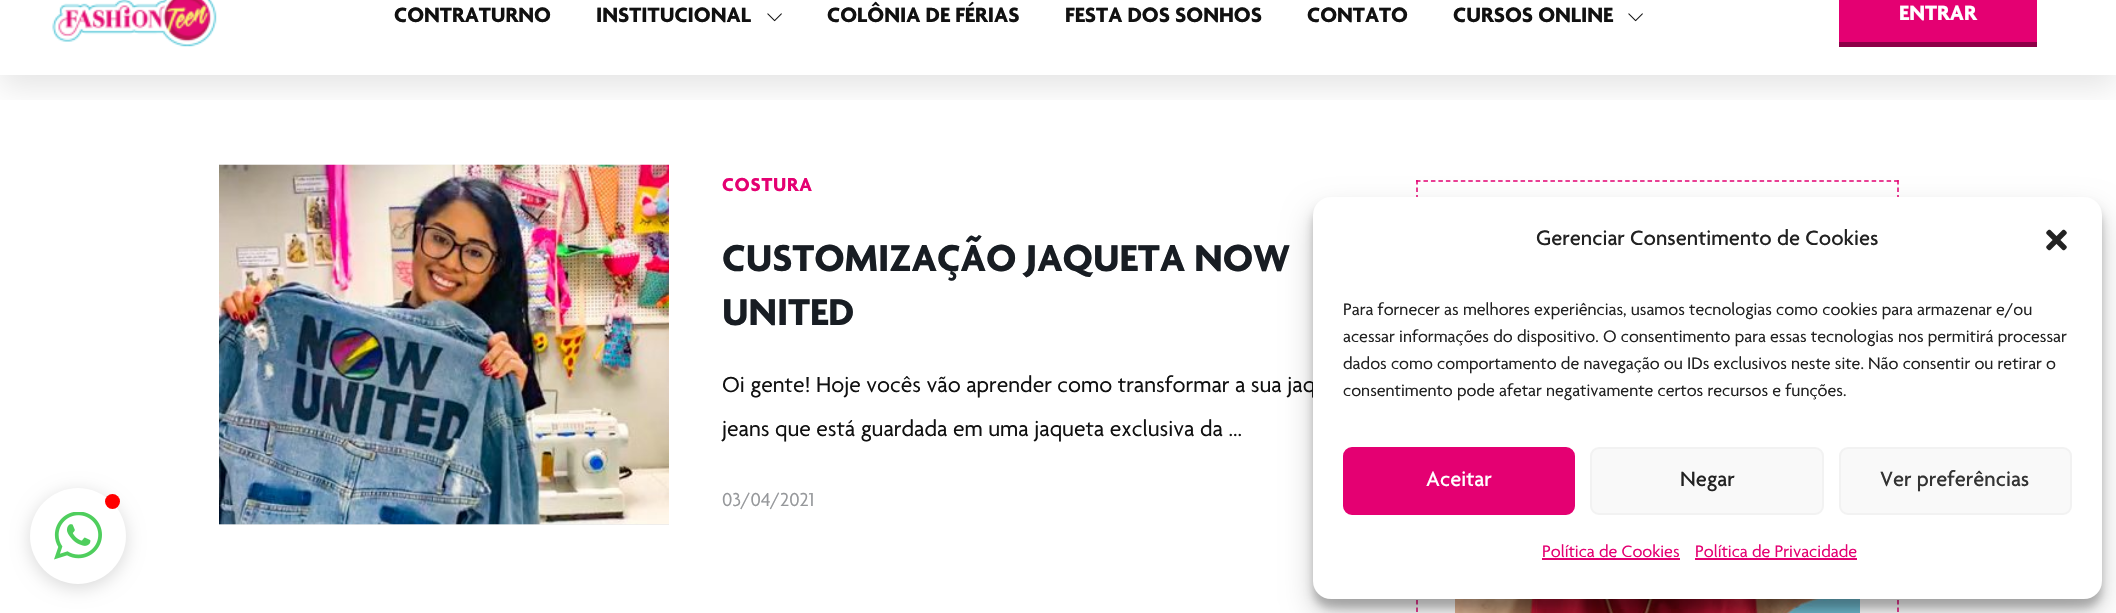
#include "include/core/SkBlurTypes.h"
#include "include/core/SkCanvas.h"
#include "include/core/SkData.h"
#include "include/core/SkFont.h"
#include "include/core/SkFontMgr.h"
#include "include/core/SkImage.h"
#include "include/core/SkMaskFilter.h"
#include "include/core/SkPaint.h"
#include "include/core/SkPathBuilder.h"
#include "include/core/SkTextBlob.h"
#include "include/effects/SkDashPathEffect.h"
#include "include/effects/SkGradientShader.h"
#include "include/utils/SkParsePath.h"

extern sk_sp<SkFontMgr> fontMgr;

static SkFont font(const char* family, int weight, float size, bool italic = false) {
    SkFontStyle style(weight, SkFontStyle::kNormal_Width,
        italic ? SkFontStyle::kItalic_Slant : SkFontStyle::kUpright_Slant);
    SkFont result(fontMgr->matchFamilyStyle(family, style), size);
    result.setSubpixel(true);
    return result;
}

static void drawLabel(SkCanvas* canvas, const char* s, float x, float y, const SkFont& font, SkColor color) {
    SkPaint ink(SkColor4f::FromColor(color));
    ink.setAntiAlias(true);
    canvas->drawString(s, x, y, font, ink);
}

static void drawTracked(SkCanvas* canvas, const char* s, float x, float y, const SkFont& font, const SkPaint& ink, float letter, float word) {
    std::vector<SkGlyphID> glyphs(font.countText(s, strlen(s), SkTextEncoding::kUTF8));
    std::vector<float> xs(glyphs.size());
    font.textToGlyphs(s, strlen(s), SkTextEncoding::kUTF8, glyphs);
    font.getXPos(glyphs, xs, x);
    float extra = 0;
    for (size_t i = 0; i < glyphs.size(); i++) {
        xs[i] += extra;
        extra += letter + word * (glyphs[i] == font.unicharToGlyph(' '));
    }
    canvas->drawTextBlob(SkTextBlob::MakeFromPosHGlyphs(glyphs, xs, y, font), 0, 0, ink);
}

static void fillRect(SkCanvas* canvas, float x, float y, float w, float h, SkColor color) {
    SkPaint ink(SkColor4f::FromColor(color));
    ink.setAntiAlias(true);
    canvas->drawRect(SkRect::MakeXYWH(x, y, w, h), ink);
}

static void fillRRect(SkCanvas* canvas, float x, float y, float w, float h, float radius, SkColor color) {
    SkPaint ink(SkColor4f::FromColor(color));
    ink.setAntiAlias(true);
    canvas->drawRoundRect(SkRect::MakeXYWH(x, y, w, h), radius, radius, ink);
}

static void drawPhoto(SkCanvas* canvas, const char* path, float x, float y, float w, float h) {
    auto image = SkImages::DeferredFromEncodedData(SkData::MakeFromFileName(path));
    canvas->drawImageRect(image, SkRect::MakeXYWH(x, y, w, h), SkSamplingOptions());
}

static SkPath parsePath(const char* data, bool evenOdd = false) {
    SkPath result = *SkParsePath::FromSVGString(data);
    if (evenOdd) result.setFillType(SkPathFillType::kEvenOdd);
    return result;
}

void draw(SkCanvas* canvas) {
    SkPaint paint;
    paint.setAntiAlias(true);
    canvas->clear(0xFFFFFFFF);
    canvas->save();
    canvas->clipRect(SkRect::MakeXYWH(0, 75, 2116, 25));
    paint.setColor(0x1A000000);
    paint.setMaskFilter(SkMaskFilter::MakeBlur(kNormal_SkBlurStyle, 15));
    canvas->drawRect(SkRect::MakeXYWH(0, -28, 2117, 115), paint);
    paint.setMaskFilter(nullptr);
    canvas->restore();
    drawPhoto(canvas, "assets/img1.png", 52, 0, 165, 47);
    SkFont font1 = font("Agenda", 700, 22.5f);
    drawLabel(canvas, "CONTRATURNO", 394, 22, font1, 0xFF111111);
    drawLabel(canvas, "INSTITUCIONAL", 596, 22, font1, 0xFF111111);
    drawPhoto(canvas, "assets/img2.png", 767, 13, 15, 9);
    drawLabel(canvas, "COLÔNIA DE FÉRIAS", 827, 22, font1, 0xFF111111);
    drawLabel(canvas, "FESTA DOS SONHOS", 1065, 22, font1, 0xFF111111);
    drawLabel(canvas, "CONTATO", 1307, 22, font1, 0xFF111111);
    drawLabel(canvas, "CURSOS ONLINE", 1453, 22, font1, 0xFF111111);
    drawPhoto(canvas, "assets/img2.png", 1628, 13, 15, 9);
    fillRect(canvas, 1839, 0, 198, 42, 0xFFE40072);
    fillRect(canvas, 1839, 42, 198, 5, 0xFF8D0047);
    drawLabel(canvas, "ENTRAR", 1899, 20, font1, 0xFFFFFFFF);
    fillRect(canvas, 219, 524, 450, 1, 0xFFEAEAEB);
    drawPhoto(canvas, "assets/img3.png", 219, 164, 450, 1);
    drawPhoto(canvas, "assets/img4.png", 219, 164, 450, 361);
    SkFont font2 = font("Agenda", 700, 20.25f);
    paint.setColor(0xFFE40072);
    drawTracked(canvas, "COSTURA", 722, 191, font2, paint, 0.75f, 0);
    SkFont font3 = font("Agenda", 700, 40.5f);
    drawLabel(canvas, "CUSTOMIZAÇÃO JAQUETA NOW", 722, 271, font3, 0xFF181D23);
    drawLabel(canvas, "UNITED", 722, 325, font3, 0xFF181D23);
    SkFont font4 = font("Agenda", 400, 23.6f);
    drawLabel(canvas, "Oi gente! Hoje vocês vão aprender como transformar a sua jaq", 722, 392, font4, 0xFF111111);
    drawLabel(canvas, "jeans que está guardada em uma jaqueta exclusiva da ...", 722, 436, font4, 0xFF111111);
    SkFont font5 = font("Agenda", 400, 20.25f);
    drawLabel(canvas, "03/04/2021", 722, 506, font5, 0xFF96989B);
    paint.setStroke(true);
    paint.setStrokeWidth(1.5f);
    paint.setPathEffect(SkDashPathEffect::Make({{4.5f, 2.97f}}, 0));
    canvas->drawPath(parsePath("M1416 181H1899"), paint);
    paint.setPathEffect(nullptr);
    paint.setPathEffect(SkDashPathEffect::Make({{4.5f, 3}}, 0));
    canvas->drawPath(parsePath("M1898 180V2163"), paint);
    paint.setPathEffect(nullptr);
    paint.setPathEffect(SkDashPathEffect::Make({{4.5f, 3}}, 0));
    canvas->drawPath(parsePath("M1417 180V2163"), paint);
    paint.setPathEffect(nullptr);
    drawPhoto(canvas, "assets/img5.png", 1455, 599, 405, 14);
    paint.setStroke(false);
    paint.setColor(0x26000000);
    paint.setMaskFilter(SkMaskFilter::MakeBlur(kNormal_SkBlurStyle, 9));
    canvas->drawRoundRect(SkRect::MakeXYWH(30, 492, 96, 96), 48, 48, paint);
    paint.setMaskFilter(nullptr);
    paint.setColor(0xFFFFFFFF);
    canvas->drawCircle(78, 536, 48, paint);
    paint.setColor(0xFFFF0000);
    canvas->drawCircle(112.5f, 501.5f, 7.5f, paint);
    drawPhoto(canvas, "assets/img6.png", 54, 512, 48, 48);
    paint.setColor(0x3B000000);
    paint.setMaskFilter(SkMaskFilter::MakeBlur(kNormal_SkBlurStyle, 4.5f));
    canvas->drawRoundRect(SkRect::MakeXYWH(1313, 206, 789, 402), 18, 18, paint);
    paint.setMaskFilter(nullptr);
    paint.setColor(0x30000000);
    paint.setMaskFilter(SkMaskFilter::MakeBlur(kNormal_SkBlurStyle, 15));
    canvas->drawRoundRect(SkRect::MakeXYWH(1313, 212, 789, 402), 18, 18, paint);
    paint.setMaskFilter(nullptr);
    fillRRect(canvas, 1313, 197, 789, 402, 18, 0xFFFFFFFF);
    SkFont font6 = font("Agenda", 500, 22.5f);
    drawLabel(canvas, "Gerenciar Consentimento de Cookies", 1536, 245, font6, 0xFF222222);
    drawPhoto(canvas, "assets/img7.png", 2046, 229, 21, 22);
    SkFont font7 = font("Agenda", 400, 18);
    drawLabel(canvas, "Para fornecer as melhores experiências, usamos tecnologias como cookies para armazenar e/ou", 1343, 315, font7, 0xFF222222);
    drawLabel(canvas, "acessar informações do dispositivo. O consentimento para essas tecnologias nos permitirá processar", 1343, 342, font7, 0xFF222222);
    drawLabel(canvas, "dados como comportamento de navegação ou IDs exclusivos neste site. Não consentir ou retirar o", 1343, 369, font7, 0xFF222222);
    drawLabel(canvas, "consentimento pode afetar negativamente certos recursos e funções.", 1343, 396, font7, 0xFF222222);
    paint.setColor(0xFFE40072);
    canvas->drawRoundRect(SkRect::MakeXYWH(1344, 448, 230, 66), 8, 8, paint);
    paint.setStroke(true);
    paint.setStrokeWidth(2);
    canvas->drawRoundRect(SkRect::MakeXYWH(1344, 448, 230, 66), 8, 8, paint);
    drawLabel(canvas, "Aceitar", 1426, 486, font6, 0xFFFFFFFF);
    paint.setStroke(false);
    paint.setColor(0xFFF9F9F9);
    canvas->drawRoundRect(SkRect::MakeXYWH(1591, 448, 232, 66), 8, 8, paint);
    paint.setStroke(true);
    paint.setColor(0xFFF2F2F2);
    canvas->drawRoundRect(SkRect::MakeXYWH(1591, 448, 232, 66), 8, 8, paint);
    drawLabel(canvas, "Negar", 1680, 486, font6, 0xFF222222);
    paint.setStroke(false);
    paint.setColor(0xFFF9F9F9);
    canvas->drawRoundRect(SkRect::MakeXYWH(1840, 448, 231, 66), 8, 8, paint);
    paint.setStroke(true);
    paint.setColor(0xFFF2F2F2);
    canvas->drawRoundRect(SkRect::MakeXYWH(1840, 448, 231, 66), 8, 8, paint);
    drawLabel(canvas, "Ver preferências", 1880, 486, font6, 0xFF333333);
    drawLabel(canvas, "Política de Cookies", 1542, 557, font7, 0xFFE40072);
    fillRect(canvas, 1542, 558, 138, 2, 0xFFE40072);
    drawLabel(canvas, "Política de Privacidade", 1695, 557, font7, 0xFFE40072);
    fillRect(canvas, 1695, 558, 162, 2, 0xFFE40072);
}
